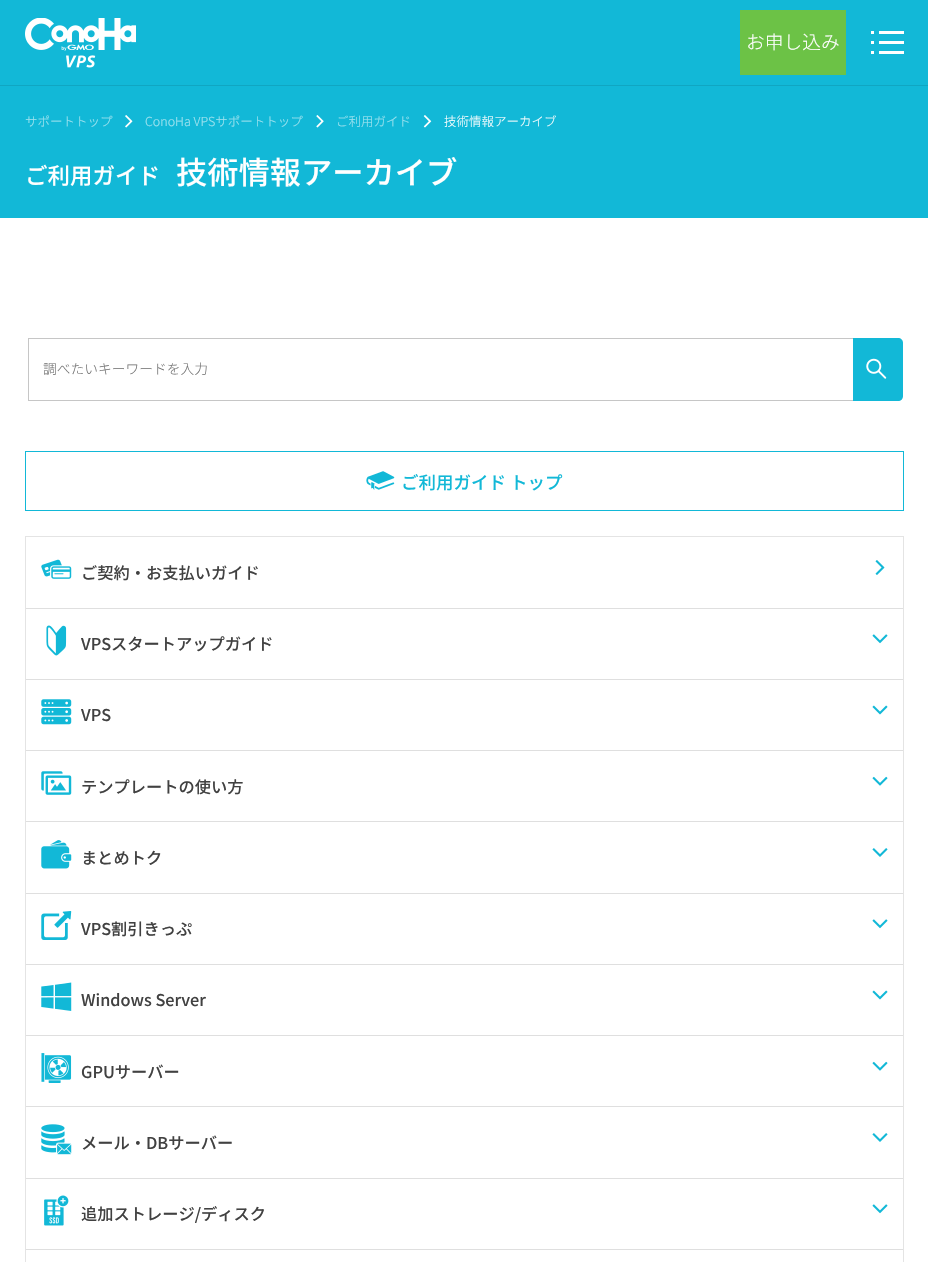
#include "include/core/SkBlurTypes.h"
#include "include/core/SkCanvas.h"
#include "include/core/SkData.h"
#include "include/core/SkFont.h"
#include "include/core/SkFontMgr.h"
#include "include/core/SkImage.h"
#include "include/core/SkMaskFilter.h"
#include "include/core/SkPaint.h"
#include "include/core/SkPathBuilder.h"
#include "include/core/SkTextBlob.h"
#include "include/effects/SkDashPathEffect.h"
#include "include/effects/SkGradientShader.h"
#include "include/utils/SkParsePath.h"

extern sk_sp<SkFontMgr> fontMgr;

static SkFont font(const char* family, int weight, float size, bool italic = false) {
    SkFontStyle style(weight, SkFontStyle::kNormal_Width,
        italic ? SkFontStyle::kItalic_Slant : SkFontStyle::kUpright_Slant);
    SkFont result(fontMgr->matchFamilyStyle(family, style), size);
    result.setSubpixel(true);
    return result;
}

static void drawLabel(SkCanvas* canvas, const char* s, float x, float y, const SkFont& font, SkColor color) {
    SkPaint ink(SkColor4f::FromColor(color));
    ink.setAntiAlias(true);
    canvas->drawString(s, x, y, font, ink);
}

static void fillRect(SkCanvas* canvas, float x, float y, float w, float h, SkColor color) {
    SkPaint ink(SkColor4f::FromColor(color));
    ink.setAntiAlias(true);
    canvas->drawRect(SkRect::MakeXYWH(x, y, w, h), ink);
}

static void drawPhoto(SkCanvas* canvas, const char* path, float x, float y, float w, float h) {
    auto image = SkImages::DeferredFromEncodedData(SkData::MakeFromFileName(path));
    canvas->drawImageRect(image, SkRect::MakeXYWH(x, y, w, h), SkSamplingOptions());
}

static SkPath parsePath(const char* data, bool evenOdd = false) {
    SkPath result = *SkParsePath::FromSVGString(data);
    if (evenOdd) result.setFillType(SkPathFillType::kEvenOdd);
    return result;
}

void draw(SkCanvas* canvas) {
    SkPaint paint;
    paint.setAntiAlias(true);
    canvas->clear(0xFFFFFFFF);
    fillRect(canvas, 0, 0, 928, 85, 0xFF12B8D7);
    fillRect(canvas, 0, 85, 928, 1, 0xFF10A6C2);
    drawPhoto(canvas, "assets/img1.png", 25, 18, 111, 50);
    fillRect(canvas, 740, 10, 106, 65, 0xFF6CC246);
    SkFont font1 = font("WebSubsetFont", 300, 18.75f);
    drawLabel(canvas, "お申し込み", 746, 49, font1, 0xFFFFFFFF);
    fillRect(canvas, 879, 31, 25, 3, 0xFFFFFFFF);
    fillRect(canvas, 871, 31, 3, 3, 0xFFFFFFFF);
    fillRect(canvas, 879, 41, 25, 3, 0xFFFFFFFF);
    fillRect(canvas, 871, 41, 3, 3, 0xFFFFFFFF);
    fillRect(canvas, 879, 51, 25, 3, 0xFFFFFFFF);
    fillRect(canvas, 871, 51, 3, 3, 0xFFFFFFFF);
    fillRect(canvas, 0, 86, 928, 132, 0xFF12B8D7);
    SkFont font2 = font("WebSubsetFont", 300, 12.5f);
    drawLabel(canvas, "サポートトップ", 25, 126, font2, 0xFFA0E3EF);
    drawPhoto(canvas, "assets/img2.png", 125, 115, 8, 13);
    drawLabel(canvas, "ConoHa VPSサポートトップ", 145, 126, font2, 0xFFA0E3EF);
    drawPhoto(canvas, "assets/img3.png", 316, 115, 8, 13);
    drawLabel(canvas, "ご利用ガイド", 336, 126, font2, 0xFFA0E3EF);
    drawPhoto(canvas, "assets/img4.png", 423, 115, 9, 13);
    drawLabel(canvas, "技術情報アーカイブ", 444, 126, font2, 0xFFFFFFFF);
    SkFont font3 = font("WebSubsetFont", 500, 22.5f);
    drawLabel(canvas, "ご利用ガイド", 25, 184, font3, 0xFFFFFFFF);
    SkFont font4 = font("WebSubsetFont", 500, 31.25f);
    drawLabel(canvas, "技術情報アーカイブ", 176, 184, font4, 0xFFFFFFFF);
    fillRect(canvas, 28, 338, 825, 1, 0xFFC6C6C6);
    fillRect(canvas, 28, 400, 825, 1, 0xFFC6C6C6);
    fillRect(canvas, 28, 338, 1, 63, 0xFFC6C6C6);
    SkFont font5 = font("WebSubsetFont", 300, 13.75f);
    drawLabel(canvas, "調べたいキーワードを入力", 43, 374, font5, 0xFF757575);
    paint.setColor(0xFF12B8D7);
    canvas->drawPath(parsePath("M853 338H898C901 338 903 340 903 343V396C903 399 901 401 898 401H853Z"), paint);
    drawPhoto(canvas, "assets/img5.png", 866, 358, 21, 21);
    paint.setStroke(true);
    paint.setStrokeWidth(1);
    canvas->drawRect(SkRect::MakeXYWH(25.5f, 451.5f, 878, 59), paint);
    drawPhoto(canvas, "assets/img6.png", 366, 471, 29, 19);
    SkFont font6 = font("WebSubsetFont", 500, 17.5f);
    drawLabel(canvas, "ご利用ガイド トップ", 401, 489, font6, 0xFF12B8D7);
    paint.setColor(0xFFE4E4E4);
    canvas->drawRect(SkRect::MakeXYWH(25.5f, 536.5f, 878, 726), paint);
    drawPhoto(canvas, "assets/img7.png", 41, 559, 31, 20);
    SkFont font7 = font("WebSubsetFont", 500, 16.25f);
    drawLabel(canvas, "ご契約・お支払いガイド", 81, 579, font7, 0xFF414141);
    drawPhoto(canvas, "assets/img8.png", 875, 560, 10, 15);
    fillRect(canvas, 26, 608, 877, 1, 0xFFDFDFDF);
    drawPhoto(canvas, "assets/img9.png", 46, 625, 21, 31);
    drawLabel(canvas, "VPSスタートアップガイド", 81, 650, font7, 0xFF414141);
    drawPhoto(canvas, "assets/img10.png", 872, 634, 16, 10);
    fillRect(canvas, 26, 679, 877, 1, 0xFFDFDFDF);
    drawPhoto(canvas, "assets/img11.png", 41, 699, 31, 26);
    drawLabel(canvas, "VPS", 81, 721, font7, 0xFF414141);
    drawPhoto(canvas, "assets/img12.png", 872, 705, 16, 10);
    fillRect(canvas, 26, 750, 877, 1, 0xFFDFDFDF);
    drawPhoto(canvas, "assets/img13.png", 41, 771, 31, 24);
    drawLabel(canvas, "テンプレートの使い方", 81, 793, font7, 0xFF414141);
    drawPhoto(canvas, "assets/img14.png", 872, 776, 16, 10);
    fillRect(canvas, 26, 821, 877, 1, 0xFFDFDFDF);
    drawPhoto(canvas, "assets/img15.png", 41, 840, 31, 29);
    drawLabel(canvas, "まとめトク", 81, 864, font7, 0xFF414141);
    drawPhoto(canvas, "assets/img16.png", 872, 848, 16, 9);
    fillRect(canvas, 26, 893, 877, 1, 0xFFDFDFDF);
    drawPhoto(canvas, "assets/img17.png", 41, 911, 31, 29);
    drawLabel(canvas, "VPS割引きっぷ", 81, 935, font7, 0xFF414141);
    drawPhoto(canvas, "assets/img10.png", 872, 919, 16, 10);
    fillRect(canvas, 26, 964, 877, 1, 0xFFDFDFDF);
    drawPhoto(canvas, "assets/img18.png", 41, 982, 31, 29);
    drawLabel(canvas, "Windows Server", 81, 1006, font7, 0xFF414141);
    drawPhoto(canvas, "assets/img12.png", 872, 990, 16, 10);
    fillRect(canvas, 26, 1035, 877, 1, 0xFFDFDFDF);
    drawPhoto(canvas, "assets/img19.png", 41, 1053, 31, 30);
    drawLabel(canvas, "GPUサーバー", 81, 1078, font7, 0xFF414141);
    drawPhoto(canvas, "assets/img14.png", 872, 1061, 16, 10);
    fillRect(canvas, 26, 1106, 877, 1, 0xFFDFDFDF);
    drawPhoto(canvas, "assets/img20.png", 41, 1124, 31, 31);
    drawLabel(canvas, "メール・DBサーバー", 81, 1149, font7, 0xFF414141);
    drawPhoto(canvas, "assets/img16.png", 872, 1133, 16, 9);
    fillRect(canvas, 26, 1178, 877, 1, 0xFFDFDFDF);
    drawPhoto(canvas, "assets/img21.png", 44, 1195, 25, 31);
    drawLabel(canvas, "追加ストレージ/ディスク", 81, 1220, font7, 0xFF414141);
    drawPhoto(canvas, "assets/img10.png", 872, 1204, 16, 10);
    fillRect(canvas, 26, 1249, 877, 1, 0xFFDFDFDF);
}
